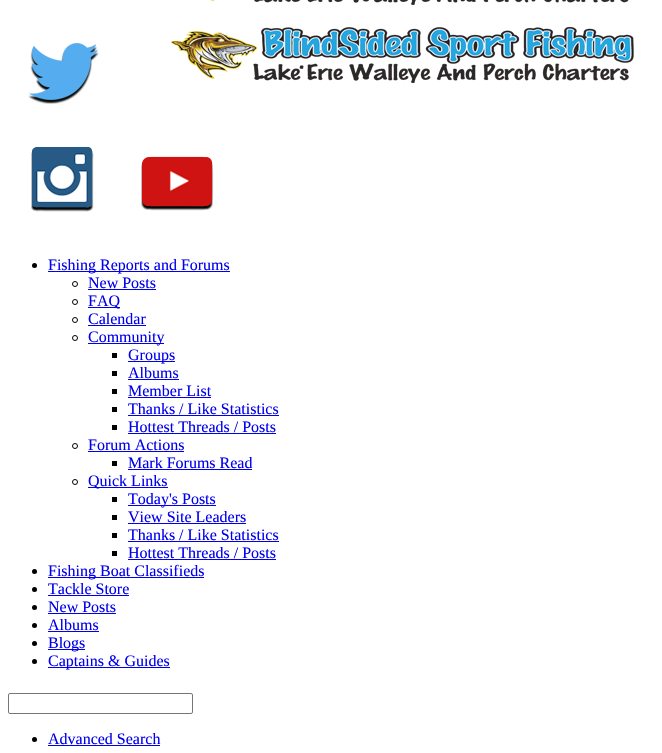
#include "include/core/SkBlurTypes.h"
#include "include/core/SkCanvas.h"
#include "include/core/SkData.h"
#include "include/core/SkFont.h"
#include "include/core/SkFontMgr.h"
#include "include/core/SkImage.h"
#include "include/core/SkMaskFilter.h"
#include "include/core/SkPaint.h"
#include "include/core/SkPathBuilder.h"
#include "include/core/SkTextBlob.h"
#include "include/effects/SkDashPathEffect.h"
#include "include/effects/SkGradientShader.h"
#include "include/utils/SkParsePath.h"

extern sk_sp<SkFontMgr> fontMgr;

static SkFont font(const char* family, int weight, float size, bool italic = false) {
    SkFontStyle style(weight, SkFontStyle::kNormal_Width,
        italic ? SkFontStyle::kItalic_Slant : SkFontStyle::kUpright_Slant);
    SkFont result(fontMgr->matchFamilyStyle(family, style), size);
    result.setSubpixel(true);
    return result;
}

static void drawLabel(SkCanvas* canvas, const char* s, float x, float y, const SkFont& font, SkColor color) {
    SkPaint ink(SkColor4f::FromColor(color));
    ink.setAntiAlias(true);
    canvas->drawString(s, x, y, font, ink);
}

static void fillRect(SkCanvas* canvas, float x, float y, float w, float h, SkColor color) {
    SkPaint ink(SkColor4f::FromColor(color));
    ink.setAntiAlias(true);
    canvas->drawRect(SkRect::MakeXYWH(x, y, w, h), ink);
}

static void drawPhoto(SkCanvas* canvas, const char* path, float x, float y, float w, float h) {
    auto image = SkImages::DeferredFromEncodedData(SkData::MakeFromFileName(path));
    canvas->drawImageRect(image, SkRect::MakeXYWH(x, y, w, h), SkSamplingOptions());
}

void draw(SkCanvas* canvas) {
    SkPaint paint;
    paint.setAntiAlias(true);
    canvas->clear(0xFFFFFFFF);
    drawPhoto(canvas, "assets/img1.png", 28, 43, 71, 61);
    drawPhoto(canvas, "assets/img2.png", 31, 146, 63, 66);
    drawPhoto(canvas, "assets/img3.png", 141, 156, 73, 55);
    drawPhoto(canvas, "assets/img4.png", 210, 0, 419, 5);
    drawPhoto(canvas, "assets/img5.png", 171, 27, 463, 56);
    paint.setColor(0xFF000000);
    canvas->drawCircle(34.5f, 265.5f, 2.5f, paint);
    fillRect(canvas, 48, 271, 182, 1, 0xFF0000EE);
    SkFont font1 = font("Liberation Serif", 400, 16);
    drawLabel(canvas, "Fishing Reports and Forums", 48, 270, font1, 0xFF0000EE);
    paint.setStroke(true);
    paint.setStrokeWidth(1);
    canvas->drawCircle(75, 284, 2.5f, paint);
    drawLabel(canvas, "New Posts", 88, 288, font1, 0xFF0000EE);
    fillRect(canvas, 88, 289, 68, 1, 0xFF0000EE);
    canvas->drawCircle(75, 302, 2.5f, paint);
    fillRect(canvas, 88, 307, 32, 1, 0xFF0000EE);
    drawLabel(canvas, "FAQ", 88, 306, font1, 0xFF0000EE);
    canvas->drawCircle(75, 320, 2.5f, paint);
    drawLabel(canvas, "Calendar", 88, 324, font1, 0xFF0000EE);
    fillRect(canvas, 88, 325, 58, 1, 0xFF0000EE);
    canvas->drawCircle(75, 338, 2.5f, paint);
    fillRect(canvas, 88, 343, 76, 1, 0xFF0000EE);
    drawLabel(canvas, "Community", 88, 342, font1, 0xFF0000EE);
    fillRect(canvas, 112, 353, 5, 5, 0xFF000000);
    fillRect(canvas, 128, 361, 47, 1, 0xFF0000EE);
    drawLabel(canvas, "Groups", 128, 360, font1, 0xFF0000EE);
    fillRect(canvas, 112, 371, 5, 5, 0xFF000000);
    drawLabel(canvas, "Albums", 128, 378, font1, 0xFF0000EE);
    fillRect(canvas, 128, 379, 51, 1, 0xFF0000EE);
    fillRect(canvas, 112, 389, 5, 5, 0xFF000000);
    drawLabel(canvas, "Member List", 128, 396, font1, 0xFF0000EE);
    fillRect(canvas, 128, 397, 83, 1, 0xFF0000EE);
    fillRect(canvas, 112, 407, 5, 5, 0xFF000000);
    drawLabel(canvas, "Thanks / Like Statistics", 128, 414, font1, 0xFF0000EE);
    fillRect(canvas, 128, 415, 151, 1, 0xFF0000EE);
    fillRect(canvas, 112, 425, 5, 5, 0xFF000000);
    drawLabel(canvas, "Hottest Threads / Posts", 128, 432, font1, 0xFF0000EE);
    fillRect(canvas, 128, 433, 148, 1, 0xFF0000EE);
    canvas->drawCircle(75, 446, 2.5f, paint);
    drawLabel(canvas, "Forum Actions", 88, 450, font1, 0xFF0000EE);
    fillRect(canvas, 88, 451, 96, 1, 0xFF0000EE);
    fillRect(canvas, 112, 461, 5, 5, 0xFF000000);
    drawLabel(canvas, "Mark Forums Read", 128, 468, font1, 0xFF0000EE);
    fillRect(canvas, 128, 469, 124, 1, 0xFF0000EE);
    canvas->drawCircle(75, 482, 2.5f, paint);
    fillRect(canvas, 88, 487, 80, 1, 0xFF0000EE);
    drawLabel(canvas, "Quick Links", 88, 486, font1, 0xFF0000EE);
    fillRect(canvas, 112, 497, 5, 5, 0xFF000000);
    fillRect(canvas, 128, 505, 88, 1, 0xFF0000EE);
    drawLabel(canvas, "Today's Posts", 128, 504, font1, 0xFF0000EE);
    fillRect(canvas, 112, 515, 5, 5, 0xFF000000);
    drawLabel(canvas, "View Site Leaders", 128, 522, font1, 0xFF0000EE);
    fillRect(canvas, 128, 523, 118, 1, 0xFF0000EE);
    fillRect(canvas, 112, 533, 5, 5, 0xFF000000);
    drawLabel(canvas, "Thanks / Like Statistics", 128, 540, font1, 0xFF0000EE);
    fillRect(canvas, 128, 541, 151, 1, 0xFF0000EE);
    fillRect(canvas, 112, 551, 5, 5, 0xFF000000);
    drawLabel(canvas, "Hottest Threads / Posts", 128, 558, font1, 0xFF0000EE);
    fillRect(canvas, 128, 559, 148, 1, 0xFF0000EE);
    paint.setStroke(false);
    canvas->drawCircle(34.5f, 571.5f, 2.5f, paint);
    fillRect(canvas, 48, 577, 156, 1, 0xFF0000EE);
    drawLabel(canvas, "Fishing Boat Classifieds", 48, 576, font1, 0xFF0000EE);
    canvas->drawCircle(34.5f, 589.5f, 2.5f, paint);
    drawLabel(canvas, "Tackle Store", 48, 594, font1, 0xFF0000EE);
    fillRect(canvas, 48, 595, 81, 1, 0xFF0000EE);
    canvas->drawCircle(34.5f, 607.5f, 2.5f, paint);
    drawLabel(canvas, "New Posts", 48, 612, font1, 0xFF0000EE);
    fillRect(canvas, 48, 613, 68, 1, 0xFF0000EE);
    canvas->drawCircle(34.5f, 625.5f, 2.5f, paint);
    drawLabel(canvas, "Albums", 48, 630, font1, 0xFF0000EE);
    fillRect(canvas, 48, 631, 51, 1, 0xFF0000EE);
    canvas->drawCircle(34.5f, 643.5f, 2.5f, paint);
    fillRect(canvas, 48, 649, 37, 1, 0xFF0000EE);
    drawLabel(canvas, "Blogs", 48, 648, font1, 0xFF0000EE);
    canvas->drawCircle(34.5f, 661.5f, 2.5f, paint);
    fillRect(canvas, 48, 667, 122, 1, 0xFF0000EE);
    drawLabel(canvas, "Captains & Guides", 48, 666, font1, 0xFF0000EE);
    paint.setStroke(true);
    paint.setColor(0xFF767676);
    canvas->drawRoundRect(SkRect::MakeXYWH(8.5f, 693.5f, 184, 20), 1.5f, 1.5f, paint);
    paint.setStroke(false);
    paint.setColor(0xFF000000);
    canvas->drawCircle(34.5f, 739.5f, 2.5f, paint);
    drawLabel(canvas, "Advanced Search", 48, 744, font1, 0xFF0000EE);
    fillRect(canvas, 48, 745, 112, 1, 0xFF0000EE);
}
